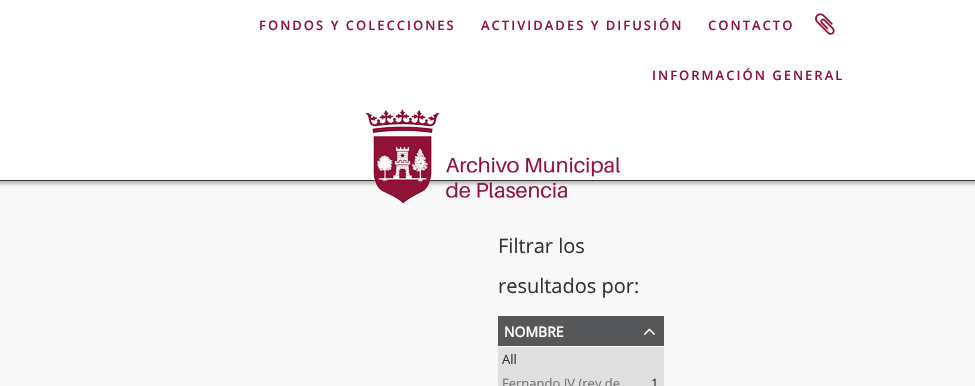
#include "include/core/SkBlurTypes.h"
#include "include/core/SkCanvas.h"
#include "include/core/SkData.h"
#include "include/core/SkFont.h"
#include "include/core/SkFontMgr.h"
#include "include/core/SkImage.h"
#include "include/core/SkMaskFilter.h"
#include "include/core/SkPaint.h"
#include "include/core/SkPathBuilder.h"
#include "include/core/SkTextBlob.h"
#include "include/effects/SkDashPathEffect.h"
#include "include/effects/SkGradientShader.h"
#include "include/utils/SkParsePath.h"

extern sk_sp<SkFontMgr> fontMgr;

static SkFont font(const char* family, int weight, float size, bool italic = false) {
    SkFontStyle style(weight, SkFontStyle::kNormal_Width,
        italic ? SkFontStyle::kItalic_Slant : SkFontStyle::kUpright_Slant);
    SkFont result(fontMgr->matchFamilyStyle(family, style), size);
    result.setSubpixel(true);
    return result;
}

static void drawLabel(SkCanvas* canvas, const char* s, float x, float y, const SkFont& font, SkColor color) {
    SkPaint ink(SkColor4f::FromColor(color));
    ink.setAntiAlias(true);
    canvas->drawString(s, x, y, font, ink);
}

static void drawTracked(SkCanvas* canvas, const char* s, float x, float y, const SkFont& font, const SkPaint& ink, float letter, float word) {
    std::vector<SkGlyphID> glyphs(font.countText(s, strlen(s), SkTextEncoding::kUTF8));
    std::vector<float> xs(glyphs.size());
    font.textToGlyphs(s, strlen(s), SkTextEncoding::kUTF8, glyphs);
    font.getXPos(glyphs, xs, x);
    float extra = 0;
    for (size_t i = 0; i < glyphs.size(); i++) {
        xs[i] += extra;
        extra += letter + word * (glyphs[i] == font.unicharToGlyph(' '));
    }
    canvas->drawTextBlob(SkTextBlob::MakeFromPosHGlyphs(glyphs, xs, y, font), 0, 0, ink);
}

static void fillRect(SkCanvas* canvas, float x, float y, float w, float h, SkColor color) {
    SkPaint ink(SkColor4f::FromColor(color));
    ink.setAntiAlias(true);
    canvas->drawRect(SkRect::MakeXYWH(x, y, w, h), ink);
}

static void drawPhoto(SkCanvas* canvas, const char* path, float x, float y, float w, float h) {
    auto image = SkImages::DeferredFromEncodedData(SkData::MakeFromFileName(path));
    canvas->drawImageRect(image, SkRect::MakeXYWH(x, y, w, h), SkSamplingOptions());
}

void draw(SkCanvas* canvas) {
    SkPaint paint;
    paint.setAntiAlias(true);
    canvas->clear(0xFFF8F8F8);
    paint.setColor(0x40000000);
    paint.setMaskFilter(SkMaskFilter::MakeBlur(kNormal_SkBlurStyle, 1.5f));
    canvas->drawRect(SkRect::MakeXYWH(-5, 3, 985, 181), paint);
    paint.setMaskFilter(nullptr);
    fillRect(canvas, 0, 0, 975, 180, 0xFFFFFFFF);
    fillRect(canvas, 0, 180, 975, 1, 0xFF333333);
    SkFont font1 = font("Open Sans", 600, 13);
    paint.setColor(0xFF901237);
    drawTracked(canvas, "FONDOS Y COLECCIONES", 259, 30, font1, paint, 2, 0);
    drawTracked(canvas, "ACTIVIDADES Y DIFUSIÓN", 481, 30, font1, paint, 2, 0);
    drawTracked(canvas, "CONTACTO", 708, 30, font1, paint, 2, 0);
    drawPhoto(canvas, "assets/img1.png", 815, 13, 20, 22);
    drawTracked(canvas, "INFORMACIÓN GENERAL", 652, 80, font1, paint, 2, 0);
    drawPhoto(canvas, "assets/img2.png", 365, 109, 255, 95);
    SkFont font2 = font("Open Sans", 400, 20);
    drawLabel(canvas, "Filtrar los", 498, 253, font2, 0xFF333333);
    drawLabel(canvas, "resultados por:", 498, 293, font2, 0xFF333333);
    fillRect(canvas, 498, 346, 166, 1, 0xFFFFFFFF);
    fillRect(canvas, 498, 316, 166, 30, 0xFF555759);
    SkFont font3 = font("Open Sans", 700, 14);
    drawLabel(canvas, "NOMBRE", 504, 337, font3, 0xFFFFFFFF);
    drawPhoto(canvas, "assets/img3.png", 643, 328, 12, 7);
    fillRect(canvas, 498, 347, 166, 39, 0xFFDFDFDF);
    SkFont font4 = font("Open Sans", 400, 13);
    drawLabel(canvas, "All", 502, 364, font4, 0xFF333333);
    drawLabel(canvas, "Fernando IV (rey de", 502, 388, font4, 0xFF737475);
    drawLabel(canvas, "1", 651, 388, font4, 0xFF333333);
}
